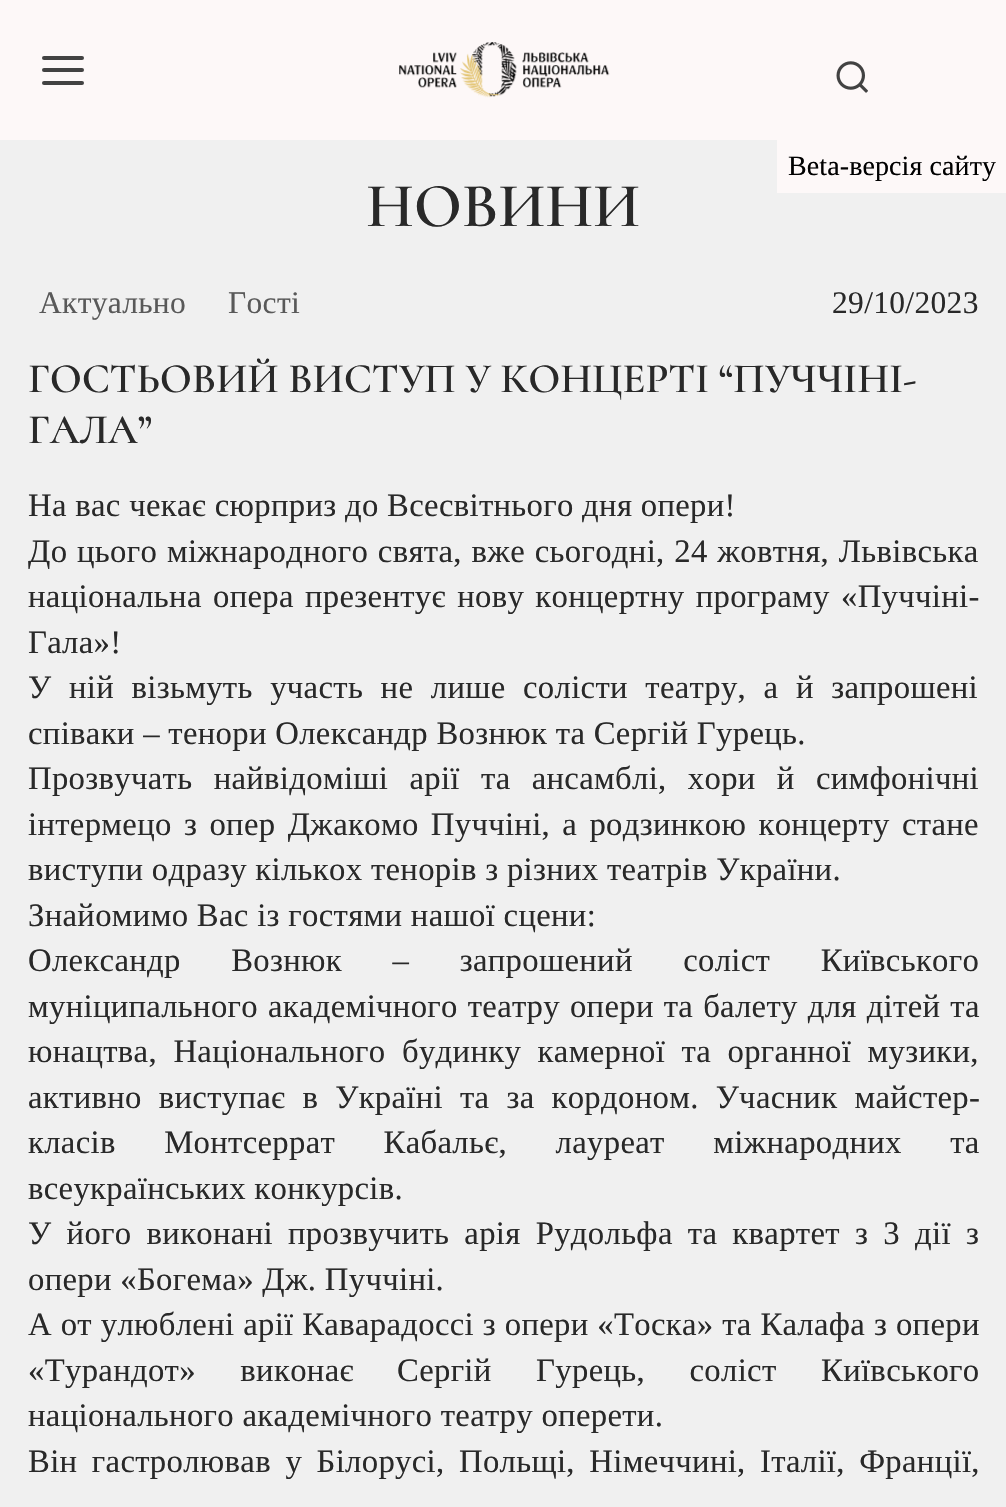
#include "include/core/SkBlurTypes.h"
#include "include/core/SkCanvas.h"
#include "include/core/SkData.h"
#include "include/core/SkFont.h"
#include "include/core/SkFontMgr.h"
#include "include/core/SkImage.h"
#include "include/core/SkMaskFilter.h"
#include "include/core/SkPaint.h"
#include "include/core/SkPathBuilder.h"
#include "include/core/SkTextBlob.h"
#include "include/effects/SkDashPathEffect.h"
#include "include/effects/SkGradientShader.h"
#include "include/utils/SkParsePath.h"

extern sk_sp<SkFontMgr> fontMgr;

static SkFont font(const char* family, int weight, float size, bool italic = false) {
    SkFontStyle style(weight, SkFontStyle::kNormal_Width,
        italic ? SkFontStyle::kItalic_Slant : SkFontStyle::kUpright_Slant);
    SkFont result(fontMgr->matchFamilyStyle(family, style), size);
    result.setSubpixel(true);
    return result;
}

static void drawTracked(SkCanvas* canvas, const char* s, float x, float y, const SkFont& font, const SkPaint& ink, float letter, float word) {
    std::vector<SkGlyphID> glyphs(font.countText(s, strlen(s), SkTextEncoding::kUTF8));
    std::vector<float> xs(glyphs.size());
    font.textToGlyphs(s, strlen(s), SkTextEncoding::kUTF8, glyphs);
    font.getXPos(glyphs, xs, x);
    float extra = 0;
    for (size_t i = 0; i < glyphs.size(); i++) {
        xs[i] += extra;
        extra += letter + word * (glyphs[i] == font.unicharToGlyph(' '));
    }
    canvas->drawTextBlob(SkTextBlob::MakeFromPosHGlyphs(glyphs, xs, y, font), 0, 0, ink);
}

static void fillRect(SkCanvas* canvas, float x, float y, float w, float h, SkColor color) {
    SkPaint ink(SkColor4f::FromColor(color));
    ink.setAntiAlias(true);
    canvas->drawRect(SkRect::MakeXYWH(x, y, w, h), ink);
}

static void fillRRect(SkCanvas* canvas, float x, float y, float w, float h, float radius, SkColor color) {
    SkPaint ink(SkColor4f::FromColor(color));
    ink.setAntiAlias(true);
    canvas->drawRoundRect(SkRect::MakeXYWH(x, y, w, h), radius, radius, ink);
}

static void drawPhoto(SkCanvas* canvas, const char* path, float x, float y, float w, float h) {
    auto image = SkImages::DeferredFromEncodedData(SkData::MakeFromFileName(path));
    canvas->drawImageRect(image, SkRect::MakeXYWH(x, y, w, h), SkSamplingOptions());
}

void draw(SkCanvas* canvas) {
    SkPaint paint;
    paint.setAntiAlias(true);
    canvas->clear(0xFFF0F0F0);
    fillRect(canvas, 0, 0, 1006, 140, 0xFFFDF8F8);
    fillRRect(canvas, 42, 56, 42, 4, 2, 0xFF424242);
    fillRRect(canvas, 42, 68, 42, 4, 2, 0xFF424242);
    fillRRect(canvas, 42, 81, 42, 4, 2, 0xFF424242);
    drawPhoto(canvas, "assets/img1.png", 399, 42, 211, 56);
    drawPhoto(canvas, "assets/img2.png", 836, 61, 32, 32);
    fillRect(canvas, 777, 140, 229, 53, 0xFFFDF8F8);
    SkFont font1 = font("Liberation Serif", 400, 28);
    paint.setColor(0xFF000000);
    drawTracked(canvas, "Beta-версія сайту", 788, 175, font1, paint, 0.1f, 0);
    SkFont font2 = font("Cormorant", 600, 63);
    paint.setColor(0xFF292929);
    drawTracked(canvas, "НОВИНИ", 366, 226, font2, paint, -0.25f, 0);
    SkFont font3 = font("Liberation Serif", 400, 31.5f);
    paint.setColor(0xFF595959);
    drawTracked(canvas, "Актуально", 39, 313, font3, paint, 0.32f, 0);
    drawTracked(canvas, "Гості", 228, 313, font3, paint, 0.32f, 0);
    paint.setColor(0xFF292929);
    drawTracked(canvas, "29/10/2023", 832, 313, font3, paint, 0.32f, 0);
    SkFont font4 = font("Cormorant", 600, 42);
    drawTracked(canvas, "ГОСТЬОВИЙ ВИСТУП У КОНЦЕРТІ “ПУЧЧІНІ-", 28, 392, font4, paint, -0.2f, 0);
    drawTracked(canvas, "ГАЛА”", 28, 443, font4, paint, -0.2f, 0);
    SkFont font5 = font("Liberation Serif", 400, 32.7f);
    drawTracked(canvas, "На вас чекає сюрприз до Всесвітнього дня опери!", 28, 516, font5, paint, 0.32f, 0);
    drawTracked(canvas, "До цього міжнародного свята, вже сьогодні, 24 жовтня, Львівська", 28, 562, font5, paint, 0.32f, 1.25f);
    drawTracked(canvas, "національна опера презентує нову концертну програму «Пуччіні-", 28, 607, font5, paint, 0.32f, 2.75f);
    drawTracked(canvas, "Гала»!", 28, 653, font5, paint, 0.32f, 0);
    drawTracked(canvas, "У ній візьмуть участь не лише солісти театру, а й запрошені", 28, 698, font5, paint, 0.32f, 9);
    drawTracked(canvas, "співаки – тенори Олександр Вознюк та Сергій Гурець.", 28, 744, font5, paint, 0.32f, 0);
    drawTracked(canvas, "Прозвучать найвідоміші арії та ансамблі, хори й симфонічні", 28, 789, font5, paint, 0.32f, 12.75f);
    drawTracked(canvas, "інтермецо з опер Джакомо Пуччіні, а родзинкою концерту стане", 28, 835, font5, paint, 0.32f, 3.75f);
    drawTracked(canvas, "виступи одразу кількох тенорів з різних театрів України.", 28, 880, font5, paint, 0.32f, 0);
    drawTracked(canvas, "Знайомимо Вас із гостями нашої сцени:", 28, 926, font5, paint, 0.32f, 0);
    drawTracked(canvas, "Олександр Вознюк – запрошений соліст Київського", 28, 971, font5, paint, 0.32f, 42);
    drawTracked(canvas, "муніципального академічного театру опери та балету для дітей та", 28, 1017, font5, paint, 0.32f, 1.5f);
    drawTracked(canvas, "юнацтва, Національного будинку камерної та органної музики,", 28, 1062, font5, paint, 0.32f, 8);
    drawTracked(canvas, "активно виступає в Україні та за кордоном. Учасник майстер-", 28, 1108, font5, paint, 0.32f, 8.5f);
    drawTracked(canvas, "класів Монтсеррат Кабальє, лауреат міжнародних та", 28, 1153, font5, paint, 0.32f, 40);
    drawTracked(canvas, "всеукраїнських конкурсів.", 28, 1199, font5, paint, 0.32f, 0);
    drawTracked(canvas, "У його виконані прозвучить арія Рудольфа та квартет з 3 дії з", 28, 1244, font5, paint, 0.32f, 6.6f);
    drawTracked(canvas, "опери «Богема» Дж. Пуччіні.", 28, 1290, font5, paint, 0.32f, 0);
    drawTracked(canvas, "А от улюблені арії Каварадоссі з опери «Тоска» та Калафа з опери", 28, 1335, font5, paint, 0.32f, 0.25f);
    drawTracked(canvas, "«Турандот» виконає", 28, 1381, font5, paint, 0.32f, 36);
    drawTracked(canvas, "Сергій Гурець, соліст Київського", 397, 1381, font5, paint, 0.32f, 36);
    drawTracked(canvas, "національного академічного театру оперети.", 28, 1426, font5, paint, 0.32f, 0);
    drawTracked(canvas, "Він гастролював у Білорусі, Польщі, Німеччині, Італії, Франції,", 28, 1472, font5, paint, 0.32f, 6);
}
